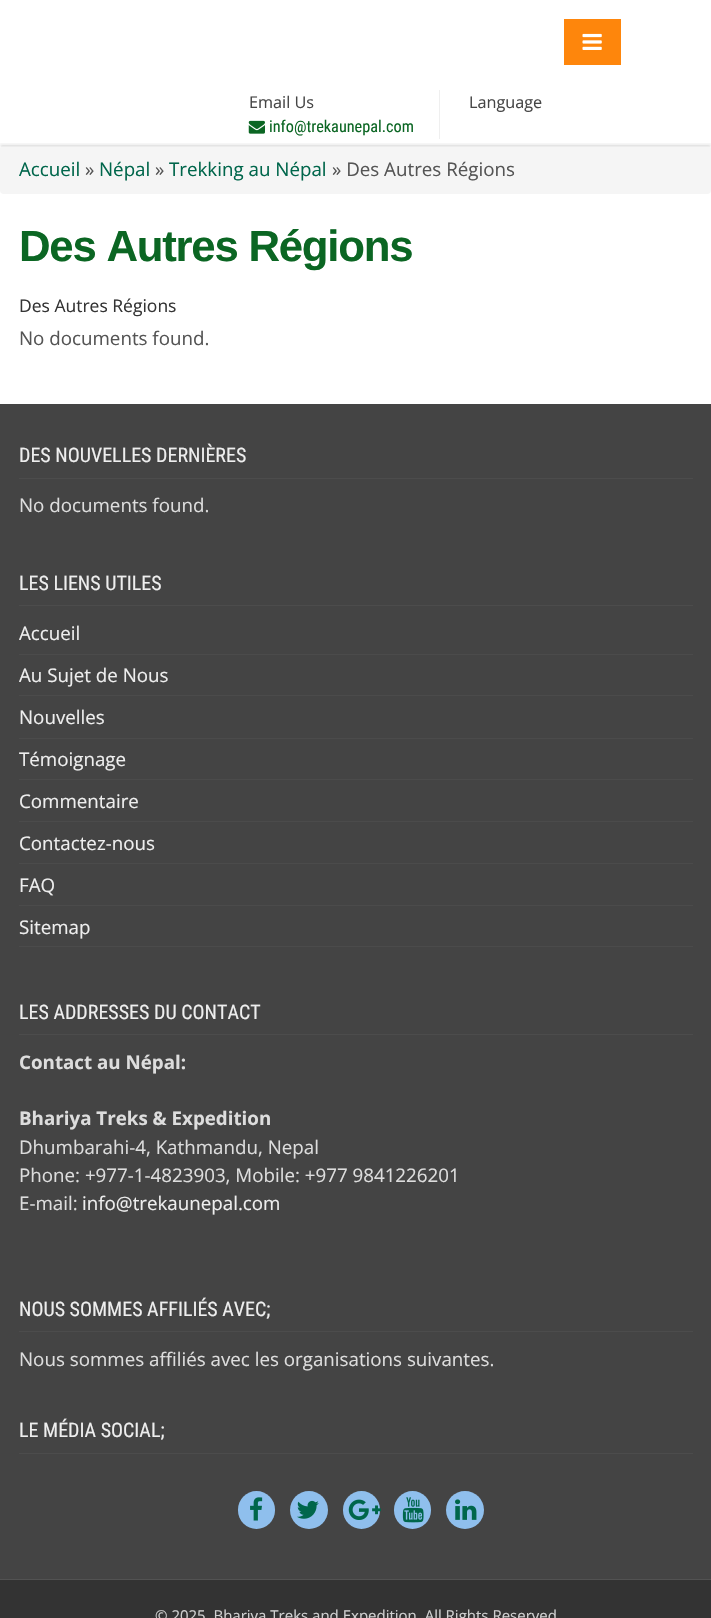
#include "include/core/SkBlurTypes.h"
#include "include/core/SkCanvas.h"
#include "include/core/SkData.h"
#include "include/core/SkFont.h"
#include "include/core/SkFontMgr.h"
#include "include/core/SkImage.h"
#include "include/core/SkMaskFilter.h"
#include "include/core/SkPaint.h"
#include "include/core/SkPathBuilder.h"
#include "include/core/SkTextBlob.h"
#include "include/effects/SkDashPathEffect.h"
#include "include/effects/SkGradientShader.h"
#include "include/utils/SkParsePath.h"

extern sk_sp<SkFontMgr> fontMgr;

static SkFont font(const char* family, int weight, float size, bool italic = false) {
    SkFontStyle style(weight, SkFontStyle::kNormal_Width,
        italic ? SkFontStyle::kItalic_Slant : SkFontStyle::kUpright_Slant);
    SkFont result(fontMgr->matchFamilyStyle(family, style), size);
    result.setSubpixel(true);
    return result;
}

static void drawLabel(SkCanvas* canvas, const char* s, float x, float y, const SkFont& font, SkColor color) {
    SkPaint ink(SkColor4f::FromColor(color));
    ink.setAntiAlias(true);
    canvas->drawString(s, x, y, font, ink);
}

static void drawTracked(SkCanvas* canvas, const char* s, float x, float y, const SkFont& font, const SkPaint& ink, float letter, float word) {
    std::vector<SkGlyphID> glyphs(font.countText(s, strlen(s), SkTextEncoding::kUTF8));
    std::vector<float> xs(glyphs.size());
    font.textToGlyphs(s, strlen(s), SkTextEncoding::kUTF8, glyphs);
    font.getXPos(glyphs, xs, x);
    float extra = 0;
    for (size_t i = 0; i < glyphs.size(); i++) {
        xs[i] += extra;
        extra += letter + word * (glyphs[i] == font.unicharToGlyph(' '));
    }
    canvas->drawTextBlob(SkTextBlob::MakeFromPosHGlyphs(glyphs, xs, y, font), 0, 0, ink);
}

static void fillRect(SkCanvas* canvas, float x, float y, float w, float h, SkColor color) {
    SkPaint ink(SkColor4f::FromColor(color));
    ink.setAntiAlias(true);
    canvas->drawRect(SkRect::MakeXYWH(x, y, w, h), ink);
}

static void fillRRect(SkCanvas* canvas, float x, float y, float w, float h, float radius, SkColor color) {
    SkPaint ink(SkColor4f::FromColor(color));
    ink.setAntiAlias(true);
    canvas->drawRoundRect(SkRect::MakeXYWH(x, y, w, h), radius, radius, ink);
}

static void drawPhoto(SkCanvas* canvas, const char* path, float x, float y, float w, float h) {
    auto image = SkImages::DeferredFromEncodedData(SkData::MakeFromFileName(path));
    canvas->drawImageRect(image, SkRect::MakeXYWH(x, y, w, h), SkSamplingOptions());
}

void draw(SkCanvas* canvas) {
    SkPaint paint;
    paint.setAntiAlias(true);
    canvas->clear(0xFFFFFFFF);
    fillRect(canvas, 0, 404, 711, 1175, 0xFF444444);
    canvas->save();
    canvas->clipRect(SkRect::MakeXYWH(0, 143, 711, 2));
    paint.setColor(0x0D000000);
    paint.setMaskFilter(SkMaskFilter::MakeBlur(kNormal_SkBlurStyle, 1));
    canvas->drawRect(SkRect::MakeXYWH(0, 143, 711, 258), paint);
    paint.setMaskFilter(nullptr);
    canvas->restore();
    fillRRect(canvas, 0, 145, 711, 49, 4, 0xFFF5F5F5);
    canvas->save();
    canvas->clipRect(SkRect::MakeXYWH(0, 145, 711, 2));
    paint.setColor(0x1A000000);
    paint.setMaskFilter(SkMaskFilter::MakeBlur(kNormal_SkBlurStyle, 1));
    canvas->drawRect(SkRect::MakeXYWH(0, 1, 711, 145), paint);
    paint.setMaskFilter(nullptr);
    canvas->restore();
    fillRect(canvas, 564, 19, 57, 46, 0xFFFE860C);
    drawPhoto(canvas, "assets/img1.png", 582, 33, 20, 17);
    fillRect(canvas, 439, 90, 1, 49, 0xFFEFEFEF);
    SkFont font1 = font("Open Sans", 400, 16.25f);
    drawLabel(canvas, "Email Us", 249, 108, font1, 0xFF464646);
    drawPhoto(canvas, "assets/img2.png", 248, 120, 17, 14);
    SkFont font2 = font("Roboto Condensed", 400, 16.25f);
    drawLabel(canvas, "info@trekaunepal.com", 269, 132, font2, 0xFF0B6623);
    drawLabel(canvas, "Language", 469, 108, font1, 0xFF464646);
    SkFont font3 = font("Open Sans", 400, 18.75f);
    drawLabel(canvas, "Accueil", 19, 176, font3, 0xFF00664B);
    drawLabel(canvas, "»", 85, 176, font3, 0xFF555555);
    drawLabel(canvas, "Népal", 99, 176, font3, 0xFF00664B);
    drawLabel(canvas, "»", 155, 176, font3, 0xFF555555);
    drawLabel(canvas, "Trekking au Népal", 169, 176, font3, 0xFF00664B);
    drawLabel(canvas, "» Des Autres Régions", 332, 176, font3, 0xFF555555);
    SkFont font4 = font("Liberation Sans", 700, 43.75f);
    paint.setColor(0xFF0B6623);
    drawTracked(canvas, "Des Autres Régions", 19, 261, font4, paint, -1.25f, 0);
    SkFont font5 = font("Open Sans", 400, 17.5f);
    drawLabel(canvas, "Des Autres Régions", 19, 312, font5, 0xFF343434);
    drawLabel(canvas, "No documents found.", 19, 345, font3, 0xFF555555);
    fillRect(canvas, 19, 478, 674, 1, 0xFF4C4C4C);
    SkFont font6 = font("Roboto Condensed", 400, 20);
    drawLabel(canvas, "DES NOUVELLES DERNIÈRES", 19, 462, font6, 0xFFEEEEEE);
    drawLabel(canvas, "No documents found.", 19, 512, font3, 0xFFDDDDDD);
    fillRect(canvas, 19, 605, 674, 1, 0xFF4C4C4C);
    drawLabel(canvas, "LES LIENS UTILES", 19, 590, font6, 0xFFEEEEEE);
    fillRect(canvas, 19, 654, 674, 1, 0xFF4B4B4B);
    drawLabel(canvas, "Accueil", 19, 640, font3, 0xFFEEEEEE);
    fillRect(canvas, 19, 695, 674, 1, 0xFF4B4B4B);
    drawLabel(canvas, "Au Sujet de Nous", 19, 682, font3, 0xFFEEEEEE);
    fillRect(canvas, 19, 738, 674, 1, 0xFF4B4B4B);
    drawLabel(canvas, "Nouvelles", 19, 724, font3, 0xFFEEEEEE);
    fillRect(canvas, 19, 779, 674, 1, 0xFF4B4B4B);
    drawLabel(canvas, "Témoignage", 19, 766, font3, 0xFFEEEEEE);
    fillRect(canvas, 19, 821, 674, 1, 0xFF4B4B4B);
    drawLabel(canvas, "Commentaire", 19, 808, font3, 0xFFEEEEEE);
    fillRect(canvas, 19, 863, 674, 1, 0xFF4B4B4B);
    drawLabel(canvas, "Contactez-nous", 19, 850, font3, 0xFFEEEEEE);
    fillRect(canvas, 19, 905, 674, 1, 0xFF4B4B4B);
    drawLabel(canvas, "FAQ", 19, 892, font3, 0xFFEEEEEE);
    fillRect(canvas, 19, 946, 674, 1, 0xFF4B4B4B);
    drawLabel(canvas, "Sitemap", 19, 934, font3, 0xFFEEEEEE);
    fillRect(canvas, 19, 1034, 674, 1, 0xFF4C4C4C);
    drawLabel(canvas, "LES ADDRESSES DU CONTACT", 19, 1019, font6, 0xFFEEEEEE);
    SkFont font7 = font("Open Sans", 700, 18.75f);
    drawLabel(canvas, "Contact au Népal:", 19, 1069, font7, 0xFFDDDDDD);
    drawLabel(canvas, "Bhariya Treks & Expedition", 19, 1125, font7, 0xFFDDDDDD);
    drawLabel(canvas, "Dhumbarahi-4, Kathmandu, Nepal", 19, 1154, font3, 0xFFDDDDDD);
    drawLabel(canvas, "Phone: +977-1-4823903, Mobile: +977 9841226201", 19, 1182, font3, 0xFFDDDDDD);
    drawLabel(canvas, "E-mail:", 19, 1210, font3, 0xFFDDDDDD);
    drawLabel(canvas, "info@trekaunepal.com", 82, 1210, font3, 0xFFEEEEEE);
    fillRect(canvas, 19, 1331, 674, 1, 0xFF4C4C4C);
    drawLabel(canvas, "NOUS SOMMES AFFILIÉS AVEC;", 19, 1316, font6, 0xFFEEEEEE);
    drawLabel(canvas, "Nous sommes affiliés avec les organisations suivantes.", 19, 1366, font3, 0xFFDDDDDD);
    fillRect(canvas, 19, 1453, 674, 1, 0xFF4C4C4C);
    drawLabel(canvas, "LE MÉDIA SOCIAL;", 19, 1437, font6, 0xFFEEEEEE);
    fillRRect(canvas, 238, 1491, 37, 38, 18.5f, 0xFF8FBFED);
    drawPhoto(canvas, "assets/img3.png", 250, 1497, 13, 24);
    paint.setColor(0xFF8FBFED);
    canvas->drawCircle(309, 1510, 19, paint);
    drawPhoto(canvas, "assets/img4.png", 297, 1500, 22, 19);
    fillRRect(canvas, 343, 1491, 37, 38, 18.5f, 0xFF8FBFED);
    drawPhoto(canvas, "assets/img5.png", 348, 1499, 33, 21);
    fillRRect(canvas, 394, 1491, 37, 38, 18.5f, 0xFF8FBFED);
    drawPhoto(canvas, "assets/img6.png", 402, 1497, 22, 26);
    canvas->drawCircle(465, 1510, 19, paint);
    drawPhoto(canvas, "assets/img7.png", 455, 1499, 22, 21);
    fillRect(canvas, 0, 1580, 711, 38, 0xFF333333);
    fillRect(canvas, 0, 1579, 711, 1, 0xFF525252);
    SkFont font8 = font("Open Sans", 400, 15);
    drawLabel(canvas, "© 2025, Bhariya Treks and Expedition. All Rights Reserved", 155, 1621, font8, 0xFFD0D0D0);
}
